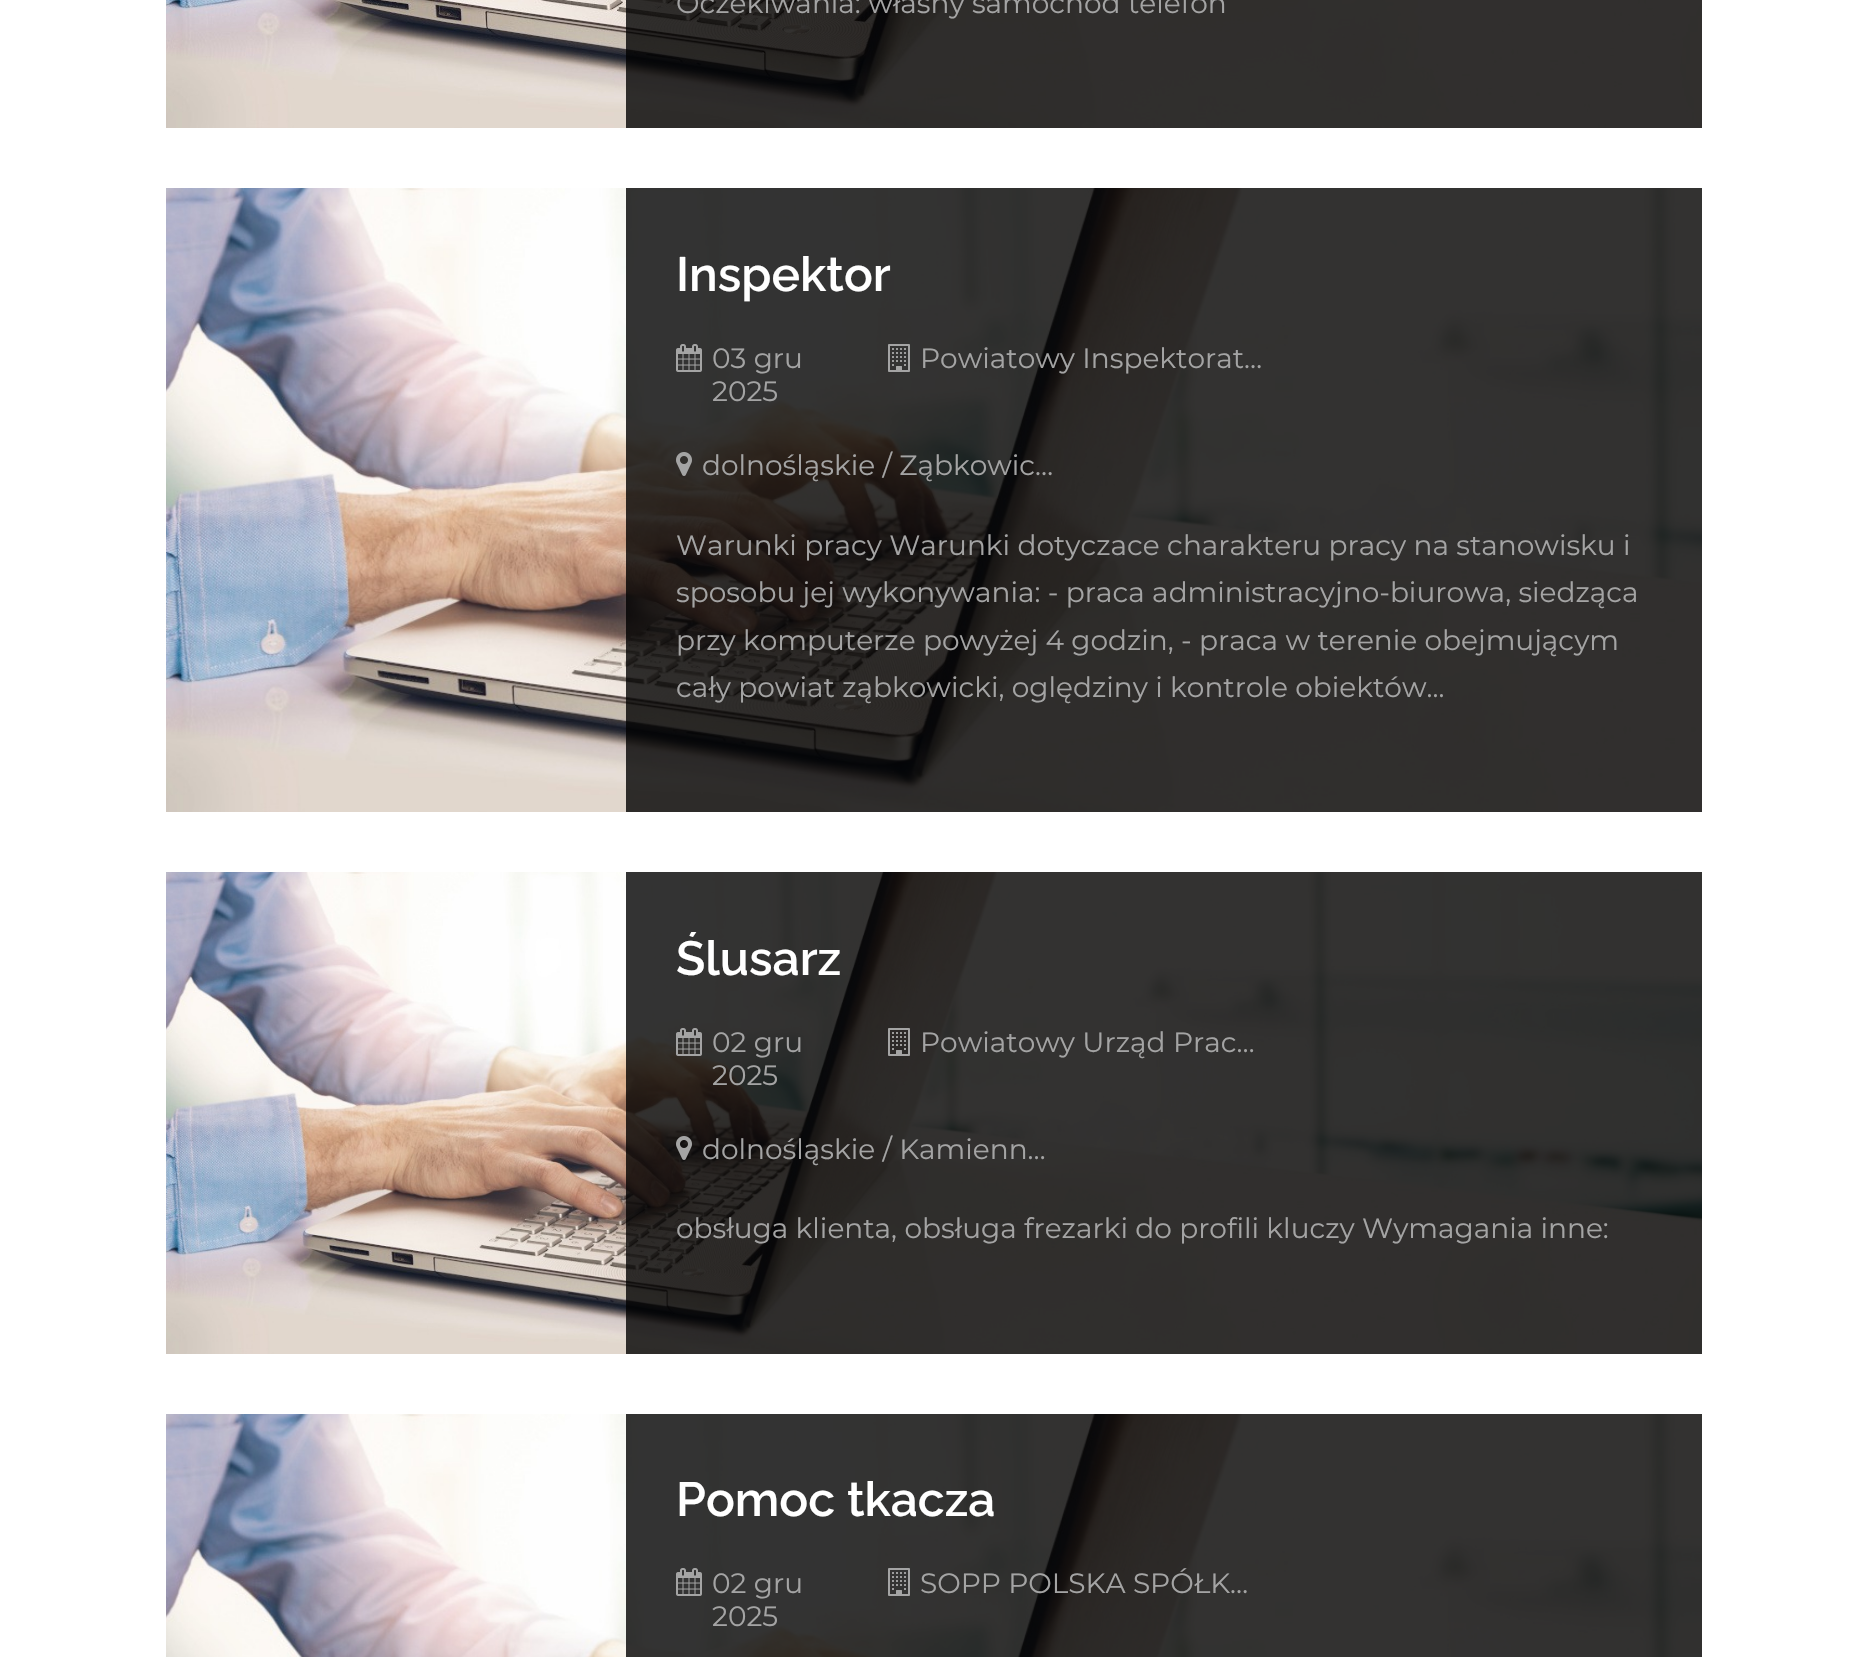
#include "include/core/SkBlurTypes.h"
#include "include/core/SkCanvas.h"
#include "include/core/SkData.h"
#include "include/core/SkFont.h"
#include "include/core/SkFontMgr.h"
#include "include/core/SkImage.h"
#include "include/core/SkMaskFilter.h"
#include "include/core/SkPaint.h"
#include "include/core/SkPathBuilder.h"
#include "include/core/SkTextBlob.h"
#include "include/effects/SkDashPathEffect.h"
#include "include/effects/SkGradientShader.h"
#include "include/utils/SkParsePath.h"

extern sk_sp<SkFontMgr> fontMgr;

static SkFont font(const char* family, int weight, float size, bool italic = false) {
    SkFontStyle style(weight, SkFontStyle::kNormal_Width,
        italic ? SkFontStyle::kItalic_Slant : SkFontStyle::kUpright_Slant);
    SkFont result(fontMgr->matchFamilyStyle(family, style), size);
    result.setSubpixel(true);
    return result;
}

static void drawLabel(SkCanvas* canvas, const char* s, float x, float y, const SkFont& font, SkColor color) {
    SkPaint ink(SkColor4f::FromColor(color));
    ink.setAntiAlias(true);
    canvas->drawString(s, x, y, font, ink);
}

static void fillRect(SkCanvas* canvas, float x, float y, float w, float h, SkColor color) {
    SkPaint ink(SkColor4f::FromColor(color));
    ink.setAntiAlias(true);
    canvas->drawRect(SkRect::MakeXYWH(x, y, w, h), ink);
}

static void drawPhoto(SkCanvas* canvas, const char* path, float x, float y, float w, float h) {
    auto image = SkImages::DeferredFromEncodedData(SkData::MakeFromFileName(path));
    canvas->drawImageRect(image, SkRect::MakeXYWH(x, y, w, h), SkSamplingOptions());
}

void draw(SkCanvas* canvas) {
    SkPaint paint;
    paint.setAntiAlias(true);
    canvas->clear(0xFFFFFFFF);
    drawPhoto(canvas, "assets/img1.png", 166, 0, 1536, 128);
    fillRect(canvas, 626, 0, 1076, 128, 0xCC000000);
    SkFont font1 = font("Montserrat", 400, 28);
    drawLabel(canvas, "Oczekiwania: własny samochód telefon", 676, 13, font1, 0xFFA4A4A4);
    drawPhoto(canvas, "assets/img2.png", 166, 188, 1536, 624);
    fillRect(canvas, 626, 188, 1076, 624, 0xCC000000);
    SkFont font2 = font("Raleway", 600, 48);
    drawLabel(canvas, "Inspektor", 676, 291, font2, 0xFFFFFFFF);
    drawPhoto(canvas, "assets/img3.png", 676, 344, 26, 28);
    drawLabel(canvas, "03 gru", 712, 368, font1, 0xFFA4A4A4);
    drawLabel(canvas, "2025", 712, 401, font1, 0xFFA4A4A4);
    drawPhoto(canvas, "assets/img4.png", 888, 344, 22, 28);
    drawLabel(canvas, "Powiatowy Inspektorat…", 920, 368, font1, 0xFFA4A4A4);
    drawPhoto(canvas, "assets/img5.png", 676, 452, 16, 24);
    drawLabel(canvas, "dolnośląskie / Ząbkowic…", 702, 475, font1, 0xFFA4A4A4);
    drawLabel(canvas, "Warunki pracy Warunki dotyczace charakteru pracy na stanowisku i", 676, 555, font1, 0xFFA4A4A4);
    drawLabel(canvas, "sposobu jej wykonywania: - praca administracyjno-biurowa, siedząca", 676, 602, font1, 0xFFA4A4A4);
    drawLabel(canvas, "przy komputerze powyżej 4 godzin, - praca w terenie obejmującym", 676, 650, font1, 0xFFA4A4A4);
    drawLabel(canvas, "cały powiat ząbkowicki, oględziny i kontrole obiektów...", 676, 697, font1, 0xFFA4A4A4);
    drawPhoto(canvas, "assets/img6.png", 166, 872, 1536, 482);
    fillRect(canvas, 626, 872, 1076, 482, 0xCC000000);
    canvas->save();
    canvas->clipRect(SkRect::MakeXYWH(676, 932, 976, 54));
    drawLabel(canvas, "Ślusarz", 676, 975, font2, 0xFFFFFFFF);
    canvas->restore();
    drawPhoto(canvas, "assets/img7.png", 676, 1028, 26, 28);
    drawLabel(canvas, "02 gru", 712, 1052, font1, 0xFFA4A4A4);
    drawLabel(canvas, "2025", 712, 1085, font1, 0xFFA4A4A4);
    drawPhoto(canvas, "assets/img8.png", 888, 1028, 22, 28);
    drawLabel(canvas, "Powiatowy Urząd Prac…", 920, 1052, font1, 0xFFA4A4A4);
    drawPhoto(canvas, "assets/img9.png", 676, 1136, 16, 24);
    drawLabel(canvas, "dolnośląskie / Kamienn…", 702, 1159, font1, 0xFFA4A4A4);
    drawLabel(canvas, "obsługa klienta, obsługa frezarki do profili kluczy Wymagania inne:", 676, 1238, font1, 0xFFA4A4A4);
    drawPhoto(canvas, "assets/img10.png", 166, 1414, 1536, 243);
    fillRect(canvas, 626, 1414, 1076, 243, 0xCC000000);
    drawLabel(canvas, "Pomoc tkacza", 676, 1516, font2, 0xFFFFFFFF);
    drawPhoto(canvas, "assets/img11.png", 676, 1568, 26, 28);
    drawLabel(canvas, "02 gru", 712, 1593, font1, 0xFFA4A4A4);
    drawLabel(canvas, "2025", 712, 1626, font1, 0xFFA4A4A4);
    drawPhoto(canvas, "assets/img12.png", 888, 1568, 22, 28);
    drawLabel(canvas, "SOPP POLSKA SPÓŁK…", 920, 1593, font1, 0xFFA4A4A4);
}
